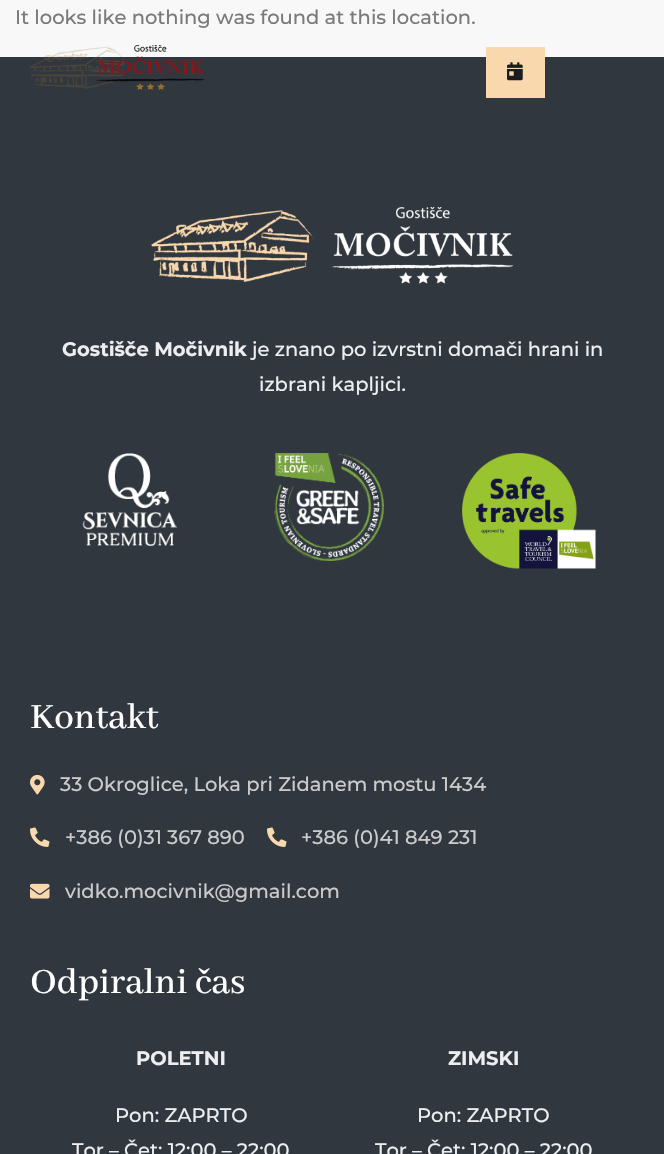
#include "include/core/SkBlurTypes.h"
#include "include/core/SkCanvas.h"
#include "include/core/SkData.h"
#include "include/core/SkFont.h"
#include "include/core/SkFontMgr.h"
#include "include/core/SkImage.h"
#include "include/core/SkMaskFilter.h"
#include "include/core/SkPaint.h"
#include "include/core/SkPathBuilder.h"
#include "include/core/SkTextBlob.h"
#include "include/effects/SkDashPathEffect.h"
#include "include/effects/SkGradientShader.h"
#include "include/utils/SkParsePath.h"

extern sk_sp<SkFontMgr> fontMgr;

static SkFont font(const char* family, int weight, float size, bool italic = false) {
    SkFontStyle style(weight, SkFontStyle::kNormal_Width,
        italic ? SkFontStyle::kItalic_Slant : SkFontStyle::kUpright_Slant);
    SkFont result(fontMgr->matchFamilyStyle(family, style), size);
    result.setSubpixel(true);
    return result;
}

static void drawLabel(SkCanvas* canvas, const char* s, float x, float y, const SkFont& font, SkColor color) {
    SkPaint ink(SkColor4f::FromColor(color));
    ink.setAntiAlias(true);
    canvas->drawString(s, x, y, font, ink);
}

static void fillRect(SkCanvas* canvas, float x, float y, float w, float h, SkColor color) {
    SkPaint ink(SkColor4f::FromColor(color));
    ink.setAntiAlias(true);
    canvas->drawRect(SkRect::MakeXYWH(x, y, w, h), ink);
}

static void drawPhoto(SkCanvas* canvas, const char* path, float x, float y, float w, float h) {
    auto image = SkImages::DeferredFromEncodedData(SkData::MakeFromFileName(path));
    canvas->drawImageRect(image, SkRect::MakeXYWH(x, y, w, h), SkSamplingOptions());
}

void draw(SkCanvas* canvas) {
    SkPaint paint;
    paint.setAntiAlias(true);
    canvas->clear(0xFFF8F8F8);
    SkFont font1 = font("Montserrat", 500, 19.5f);
    drawLabel(canvas, "It looks like nothing was found at this location.", 15, 24, font1, 0xFF7A7A7A);
    fillRect(canvas, 0, 57, 664, 1097, 0xFF31373F);
    drawPhoto(canvas, "assets/img1.png", 30, 45, 174, 45);
    fillRect(canvas, 486, 47, 59, 51, 0xFFF9D8AD);
    drawPhoto(canvas, "assets/img2.png", 507, 62, 16, 19);
    drawPhoto(canvas, "assets/img3.png", 151, 207, 362, 77);
    SkFont font2 = font("Montserrat", 700, 19.5f);
    drawLabel(canvas, "Gostišče Močivnik", 62, 356, font2, 0xFFEDEEF0);
    drawLabel(canvas, "je znano po izvrstni domači hrani in", 252, 356, font1, 0xFFEDEEF0);
    drawLabel(canvas, "izbrani kapljici.", 259, 391, font1, 0xFFEDEEF0);
    drawPhoto(canvas, "assets/img4.png", 82, 453, 95, 93);
    drawPhoto(canvas, "assets/img5.png", 274, 453, 110, 108);
    drawPhoto(canvas, "assets/img6.png", 462, 453, 134, 116);
    SkFont font3 = font("Abhaya Libre Medium", 500, 39);
    drawLabel(canvas, "Kontakt", 30, 728, font3, 0xFFFFFFFF);
    drawPhoto(canvas, "assets/img7.png", 30, 774, 15, 21);
    drawLabel(canvas, "33 Okroglice, Loka pri Zidanem mostu 1434", 60, 791, font1, 0xFFCBCBCB);
    drawPhoto(canvas, "assets/img8.png", 30, 827, 20, 20);
    drawLabel(canvas, "+386 (0)31 367 890", 65, 844, font1, 0xFFCBCBCB);
    drawPhoto(canvas, "assets/img8.png", 267, 827, 20, 20);
    drawLabel(canvas, "+386 (0)41 849 231", 301, 844, font1, 0xFFCBCBCB);
    drawPhoto(canvas, "assets/img9.png", 30, 883, 20, 16);
    drawLabel(canvas, "vidko.mocivnik@gmail.com", 65, 898, font1, 0xFFCBCBCB);
    drawLabel(canvas, "Odpiralni čas", 30, 993, font3, 0xFFFFFFFF);
    drawLabel(canvas, "POLETNI", 136, 1065, font2, 0xFFEDEEF0);
    drawLabel(canvas, "Pon: ZAPRTO", 115, 1122, font1, 0xFFEDEEF0);
    drawLabel(canvas, "Tor – Čet: 12:00 – 22:00", 72, 1157, font1, 0xFFEDEEF0);
    drawLabel(canvas, "ZIMSKI", 448, 1065, font2, 0xFFEDEEF0);
    drawLabel(canvas, "Pon: ZAPRTO", 417, 1122, font1, 0xFFEDEEF0);
    drawLabel(canvas, "Tor – Čet: 12:00 – 22:00", 375, 1157, font1, 0xFFEDEEF0);
}
